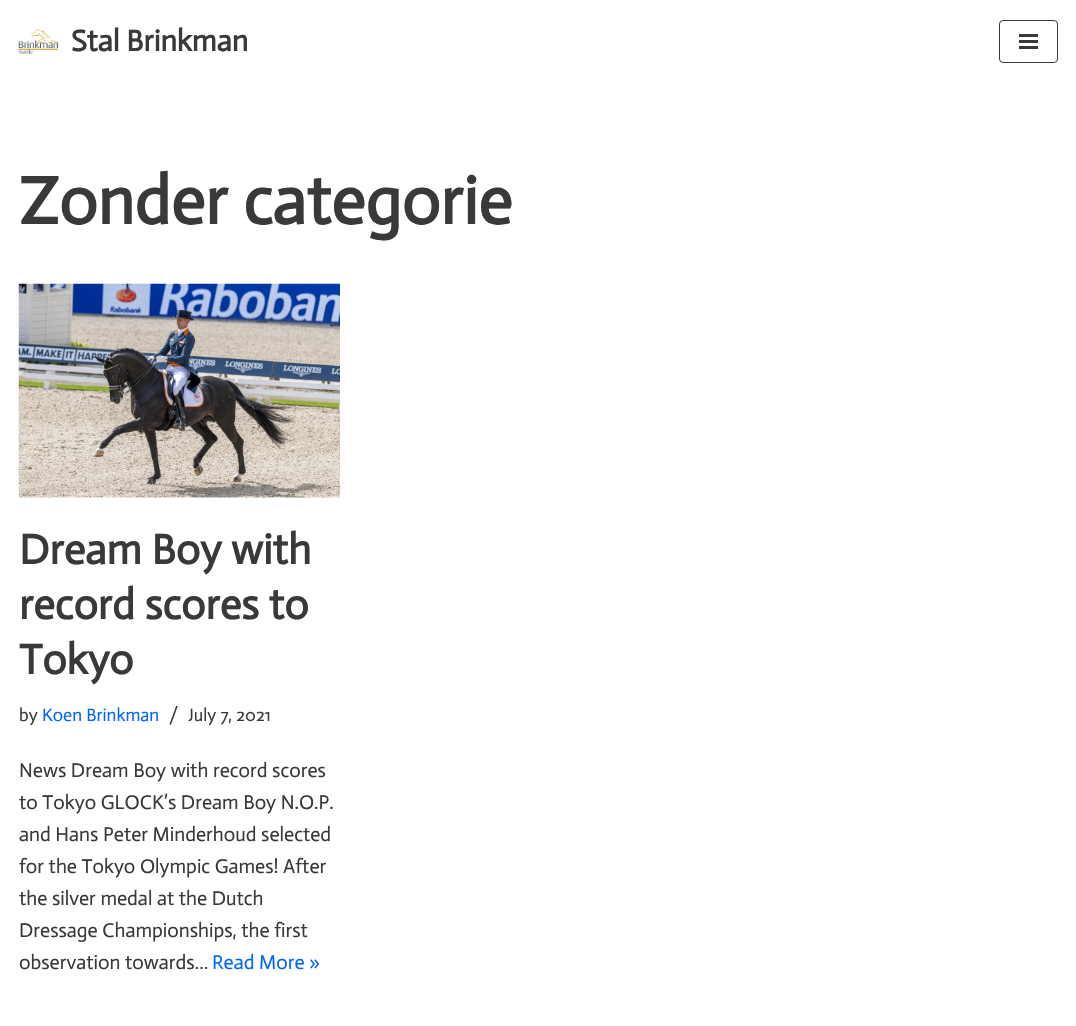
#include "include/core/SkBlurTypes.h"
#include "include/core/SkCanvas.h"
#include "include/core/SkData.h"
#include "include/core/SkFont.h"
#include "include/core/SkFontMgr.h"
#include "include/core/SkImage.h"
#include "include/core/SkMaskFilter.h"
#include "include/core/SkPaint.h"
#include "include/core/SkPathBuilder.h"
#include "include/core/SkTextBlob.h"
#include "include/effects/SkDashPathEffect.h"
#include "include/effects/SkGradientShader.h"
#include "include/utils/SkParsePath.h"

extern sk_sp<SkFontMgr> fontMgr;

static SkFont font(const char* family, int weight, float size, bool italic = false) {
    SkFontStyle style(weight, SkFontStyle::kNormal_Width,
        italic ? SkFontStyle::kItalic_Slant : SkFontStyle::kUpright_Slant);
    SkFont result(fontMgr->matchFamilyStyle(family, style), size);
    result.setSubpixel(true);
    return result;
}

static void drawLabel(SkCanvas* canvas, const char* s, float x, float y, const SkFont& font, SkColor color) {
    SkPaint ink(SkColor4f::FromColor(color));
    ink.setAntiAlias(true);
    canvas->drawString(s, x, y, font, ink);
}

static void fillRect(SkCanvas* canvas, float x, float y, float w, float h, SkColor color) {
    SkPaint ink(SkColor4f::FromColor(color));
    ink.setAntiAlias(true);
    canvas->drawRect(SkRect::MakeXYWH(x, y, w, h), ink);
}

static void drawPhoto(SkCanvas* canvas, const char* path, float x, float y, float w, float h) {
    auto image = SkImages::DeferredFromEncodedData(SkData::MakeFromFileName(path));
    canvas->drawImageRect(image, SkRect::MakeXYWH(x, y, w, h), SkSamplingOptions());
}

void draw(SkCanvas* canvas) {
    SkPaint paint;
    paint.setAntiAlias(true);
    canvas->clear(0xFFFFFFFF);
    drawPhoto(canvas, "assets/img1.png", 18, 28, 41, 26);
    SkFont font1 = font("Actor", 700, 30);
    drawLabel(canvas, "Stal Brinkman", 71, 51, font1, 0xFF393939);
    paint.setStroke(true);
    paint.setStrokeWidth(1);
    paint.setColor(0xFF393939);
    canvas->drawRoundRect(SkRect::MakeXYWH(999.5f, 20.5f, 58, 42), 3.5f, 3.5f, paint);
    fillRect(canvas, 1019, 34, 19, 3, 0xFF393939);
    fillRect(canvas, 1019, 40, 19, 3, 0xFF393939);
    fillRect(canvas, 1019, 46, 19, 3, 0xFF393939);
    SkFont font2 = font("Actor", 700, 67.5f);
    drawLabel(canvas, "Zonder categorie", 19, 224, font2, 0xFF393939);
    drawPhoto(canvas, "assets/img2.png", 18, 283, 322, 215);
    SkFont font3 = font("Actor", 700, 42.5f);
    drawLabel(canvas, "Dream Boy with", 19, 564, font3, 0xFF393939);
    drawLabel(canvas, "record scores to", 19, 619, font3, 0xFF393939);
    drawLabel(canvas, "Tokyo", 19, 674, font3, 0xFF393939);
    SkFont font4 = font("Actor", 400, 18);
    drawLabel(canvas, "by", 19, 721, font4, 0xFF393939);
    drawLabel(canvas, "Koen Brinkman", 42, 721, font4, 0xFF0066FF);
    drawLabel(canvas, "/", 169, 721, font4, 0xFF393939);
    drawLabel(canvas, "July 7, 2021", 188, 721, font4, 0xFF393939);
    SkFont font5 = font("Actor", 400, 20);
    drawLabel(canvas, "News Dream Boy with record scores", 19, 777, font5, 0xFF393939);
    drawLabel(canvas, "to Tokyo GLOCK’s Dream Boy N.O.P.", 19, 809, font5, 0xFF393939);
    drawLabel(canvas, "and Hans Peter Minderhoud selected", 19, 841, font5, 0xFF393939);
    drawLabel(canvas, "for the Tokyo Olympic Games! After", 19, 873, font5, 0xFF393939);
    drawLabel(canvas, "the silver medal at the Dutch", 19, 905, font5, 0xFF393939);
    drawLabel(canvas, "Dressage Championships, the first", 19, 937, font5, 0xFF393939);
    drawLabel(canvas, "observation towards…", 19, 969, font5, 0xFF393939);
    drawLabel(canvas, "Read More »", 212, 969, font5, 0xFF0066FF);
}
